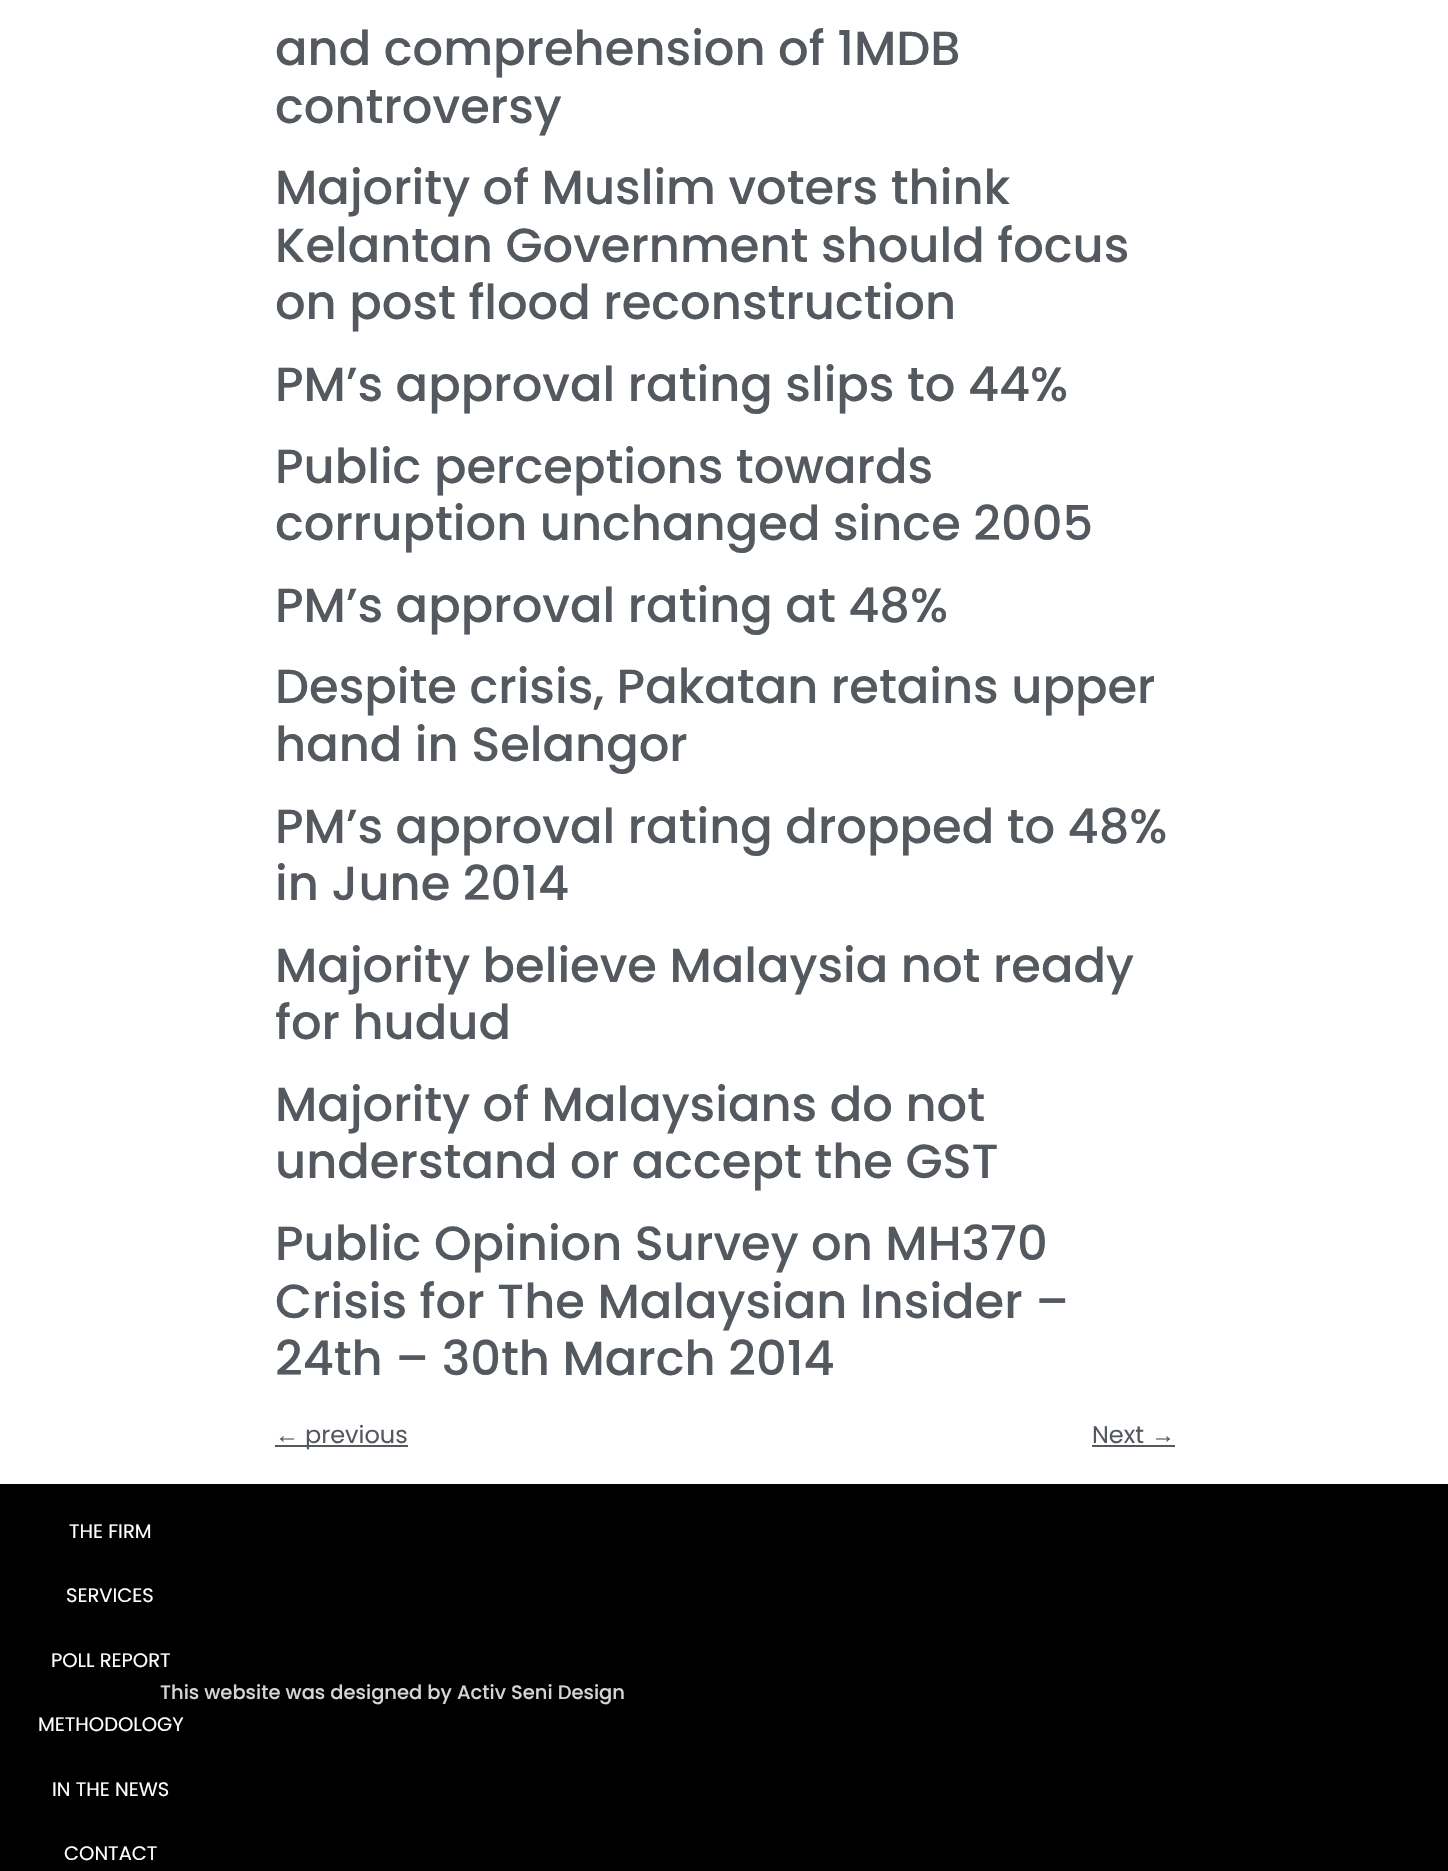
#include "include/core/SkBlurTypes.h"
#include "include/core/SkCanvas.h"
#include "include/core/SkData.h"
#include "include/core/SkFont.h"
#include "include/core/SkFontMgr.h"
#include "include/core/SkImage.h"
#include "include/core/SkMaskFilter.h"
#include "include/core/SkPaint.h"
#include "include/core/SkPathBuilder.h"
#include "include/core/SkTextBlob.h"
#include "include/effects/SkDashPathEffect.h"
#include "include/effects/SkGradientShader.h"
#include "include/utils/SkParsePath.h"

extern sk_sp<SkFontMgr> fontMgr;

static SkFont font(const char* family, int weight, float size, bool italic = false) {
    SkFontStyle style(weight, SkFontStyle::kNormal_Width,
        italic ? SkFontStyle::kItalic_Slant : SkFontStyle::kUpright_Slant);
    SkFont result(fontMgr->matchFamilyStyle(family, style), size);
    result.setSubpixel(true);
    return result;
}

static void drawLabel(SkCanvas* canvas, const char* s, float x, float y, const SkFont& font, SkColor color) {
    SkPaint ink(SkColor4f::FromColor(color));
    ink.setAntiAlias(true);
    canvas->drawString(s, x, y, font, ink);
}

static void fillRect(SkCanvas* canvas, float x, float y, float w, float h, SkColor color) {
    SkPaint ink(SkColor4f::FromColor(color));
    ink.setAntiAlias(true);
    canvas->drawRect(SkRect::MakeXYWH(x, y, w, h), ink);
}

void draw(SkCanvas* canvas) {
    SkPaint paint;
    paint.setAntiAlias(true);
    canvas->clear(0xFFFFFFFF);
    SkFont font1 = font("Poppins", 500, 48);
    drawLabel(canvas, "and comprehension of 1MDB", 275, 65, font1, 0xFF54595F);
    drawLabel(canvas, "controversy", 275, 123, font1, 0xFF54595F);
    drawLabel(canvas, "Majority of Muslim voters think", 275, 204, font1, 0xFF54595F);
    drawLabel(canvas, "Kelantan Government should focus", 275, 262, font1, 0xFF54595F);
    drawLabel(canvas, "on post flood reconstruction", 275, 319, font1, 0xFF54595F);
    drawLabel(canvas, "PM’s approval rating slips to 44%", 275, 401, font1, 0xFF54595F);
    drawLabel(canvas, "Public perceptions towards", 275, 483, font1, 0xFF54595F);
    drawLabel(canvas, "corruption unchanged since 2005", 275, 540, font1, 0xFF54595F);
    drawLabel(canvas, "PM’s approval rating at 48%", 275, 622, font1, 0xFF54595F);
    drawLabel(canvas, "Despite crisis, Pakatan retains upper", 275, 703, font1, 0xFF54595F);
    drawLabel(canvas, "hand in Selangor", 275, 761, font1, 0xFF54595F);
    drawLabel(canvas, "PM’s approval rating dropped to 48%", 275, 843, font1, 0xFF54595F);
    drawLabel(canvas, "in June 2014", 275, 900, font1, 0xFF54595F);
    drawLabel(canvas, "Majority believe Malaysia not ready", 275, 982, font1, 0xFF54595F);
    drawLabel(canvas, "for hudud", 275, 1039, font1, 0xFF54595F);
    drawLabel(canvas, "Majority of Malaysians do not", 275, 1121, font1, 0xFF54595F);
    drawLabel(canvas, "understand or accept the GST", 275, 1178, font1, 0xFF54595F);
    drawLabel(canvas, "Public Opinion Survey on MH370", 275, 1260, font1, 0xFF54595F);
    drawLabel(canvas, "Crisis for The Malaysian Insider –", 275, 1318, font1, 0xFF54595F);
    drawLabel(canvas, "24th – 30th March 2014", 275, 1375, font1, 0xFF54595F);
    SkFont font2 = font("Liberation Sans", 400, 24);
    drawLabel(canvas, "←", 275, 1443, font2, 0xFF54595F);
    fillRect(canvas, 275, 1445, 133, 2, 0xFF54595F);
    SkFont font3 = font("Poppins", 400, 24);
    drawLabel(canvas, "previous", 305, 1443, font3, 0xFF54595F);
    drawLabel(canvas, "Next", 1092, 1443, font3, 0xFF54595F);
    drawLabel(canvas, "→", 1151, 1443, font2, 0xFF54595F);
    fillRect(canvas, 1092, 1445, 83, 2, 0xFF54595F);
    fillRect(canvas, 0, 1484, 1448, 387, 0xFF000000);
    SkFont font4 = font("Poppins", 400, 19.5f);
    drawLabel(canvas, "THE FIRM", 69, 1538, font4, 0xFFFFFFFF);
    drawLabel(canvas, "SERVICES", 66, 1602, font4, 0xFFFFFFFF);
    drawLabel(canvas, "POLL REPORT", 51, 1667, font4, 0xFFFFFFFF);
    drawLabel(canvas, "METHODOLOGY", 38, 1731, font4, 0xFFFFFFFF);
    drawLabel(canvas, "IN THE NEWS", 52, 1796, font4, 0xFFFFFFFF);
    drawLabel(canvas, "CONTACT", 64, 1860, font4, 0xFFFFFFFF);
    SkFont font5 = font("Poppins", 500, 19.5f);
    drawLabel(canvas, "This website was designed by Activ Seni Design", 160, 1699, font5, 0xFFD5D5D5);
}
